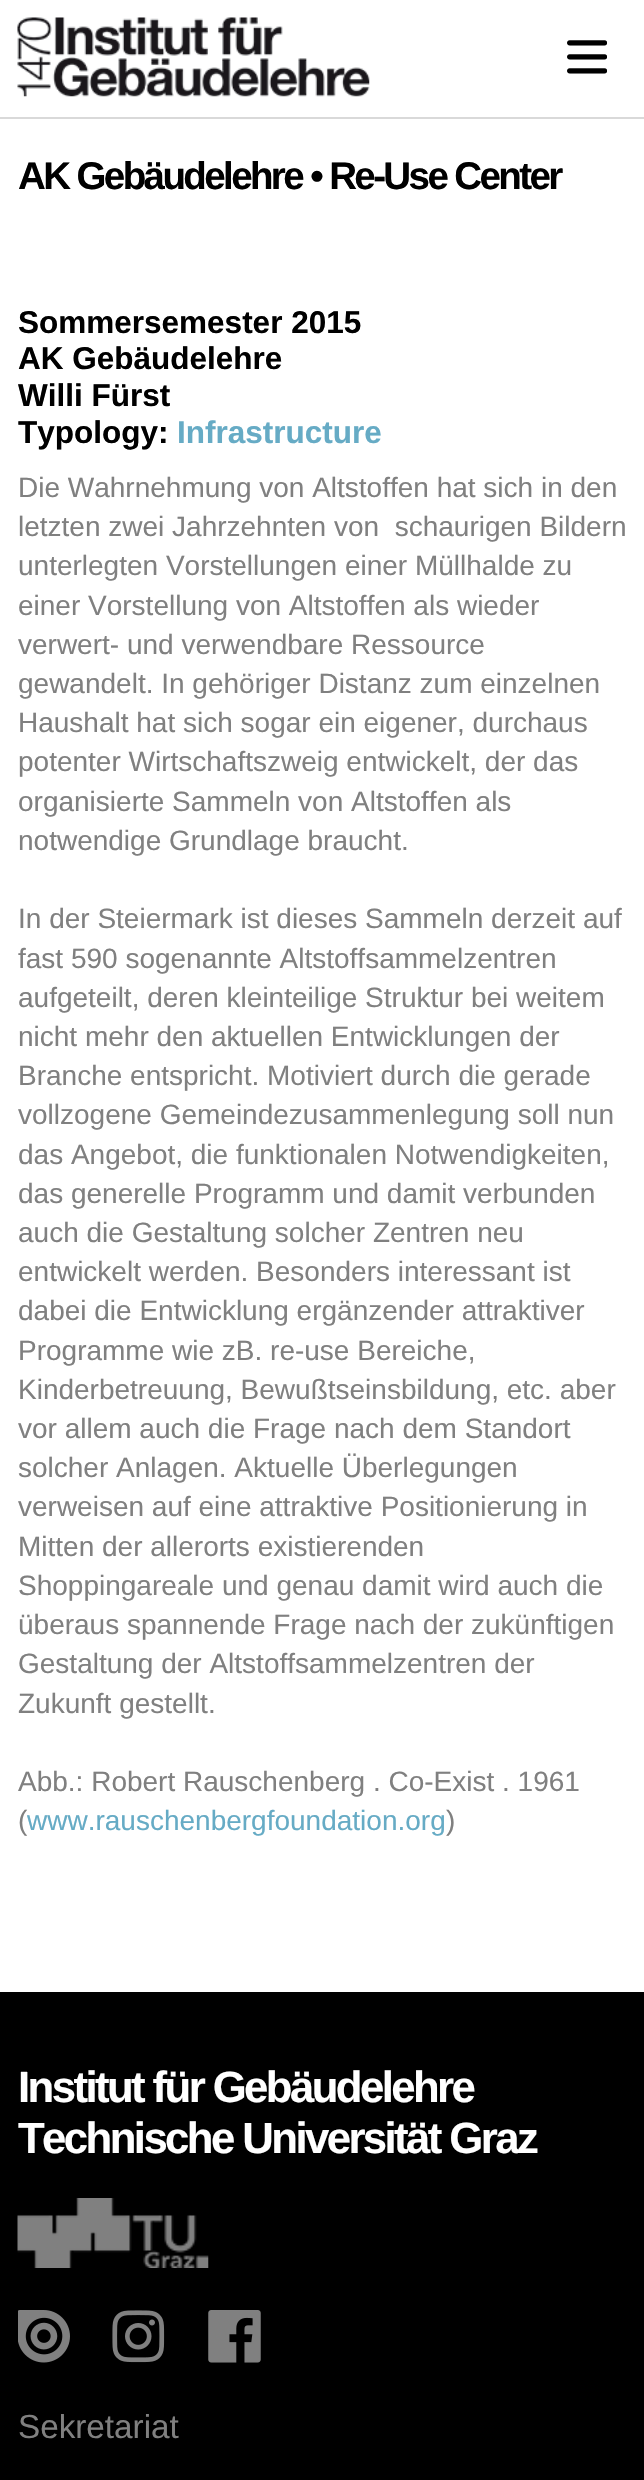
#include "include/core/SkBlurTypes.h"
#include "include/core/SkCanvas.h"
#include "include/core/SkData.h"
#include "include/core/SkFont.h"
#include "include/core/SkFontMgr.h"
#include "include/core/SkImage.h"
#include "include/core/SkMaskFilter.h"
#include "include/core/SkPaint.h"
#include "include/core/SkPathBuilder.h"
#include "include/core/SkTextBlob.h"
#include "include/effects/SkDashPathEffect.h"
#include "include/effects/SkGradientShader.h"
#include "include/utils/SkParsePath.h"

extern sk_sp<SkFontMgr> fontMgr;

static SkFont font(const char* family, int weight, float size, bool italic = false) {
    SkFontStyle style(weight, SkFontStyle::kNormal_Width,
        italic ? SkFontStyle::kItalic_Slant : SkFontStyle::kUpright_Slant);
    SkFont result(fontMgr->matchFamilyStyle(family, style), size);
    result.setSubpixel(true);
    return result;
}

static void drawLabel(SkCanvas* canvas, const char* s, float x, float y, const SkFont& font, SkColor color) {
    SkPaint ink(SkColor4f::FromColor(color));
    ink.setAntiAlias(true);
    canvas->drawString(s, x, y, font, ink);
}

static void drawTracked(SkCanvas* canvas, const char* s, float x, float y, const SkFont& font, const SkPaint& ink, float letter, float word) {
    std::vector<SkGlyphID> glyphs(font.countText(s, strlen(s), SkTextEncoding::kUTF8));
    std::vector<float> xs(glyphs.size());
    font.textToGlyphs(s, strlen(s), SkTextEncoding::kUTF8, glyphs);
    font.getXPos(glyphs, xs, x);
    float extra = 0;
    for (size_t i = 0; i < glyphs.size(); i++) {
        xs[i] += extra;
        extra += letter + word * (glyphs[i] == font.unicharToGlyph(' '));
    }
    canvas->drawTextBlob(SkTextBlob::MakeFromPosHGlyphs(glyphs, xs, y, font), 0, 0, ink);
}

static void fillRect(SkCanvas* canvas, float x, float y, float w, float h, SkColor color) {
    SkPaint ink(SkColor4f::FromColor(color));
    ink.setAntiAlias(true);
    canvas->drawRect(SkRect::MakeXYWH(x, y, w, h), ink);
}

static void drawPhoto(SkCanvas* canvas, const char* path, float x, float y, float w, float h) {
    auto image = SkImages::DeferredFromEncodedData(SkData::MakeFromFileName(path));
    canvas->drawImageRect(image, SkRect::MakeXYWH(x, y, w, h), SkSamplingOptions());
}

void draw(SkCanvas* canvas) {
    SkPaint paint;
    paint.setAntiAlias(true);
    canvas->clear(0xFFFFFFFF);
    drawPhoto(canvas, "assets/img1.png", 17, 17, 353, 80);
    drawPhoto(canvas, "assets/img2.png", 567, 40, 40, 34);
    fillRect(canvas, 0, 117, 644, 2, 0xFFD9D9D9);
    SkFont font1 = font("Liberation Sans", 700, 38.5f);
    paint.setColor(0xFF000000);
    drawTracked(canvas, "AK Gebäudelehre • Re-Use Center", 18, 189, font1, paint, -2.6f, 0);
    SkFont font2 = font("Liberation Sans", 700, 31.5f);
    drawLabel(canvas, "Sommersemester 2015", 18, 333, font2, 0xFF000000);
    drawLabel(canvas, "AK Gebäudelehre", 18, 369, font2, 0xFF000000);
    drawLabel(canvas, "Willi Fürst", 18, 406, font2, 0xFF000000);
    drawLabel(canvas, "Typology:", 18, 443, font2, 0xFF000000);
    drawLabel(canvas, "Infrastructure", 177, 443, font2, 0xFF66ABC5);
    SkFont font3 = font("Liberation Sans", 400, 28);
    drawLabel(canvas, "Die Wahrnehmung von Altstoffen hat sich in den", 18, 497, font3, 0xFF808080);
    drawLabel(canvas, "letzten zwei Jahrzehnten von  schaurigen Bildern", 18, 536, font3, 0xFF808080);
    drawLabel(canvas, "unterlegten Vorstellungen einer Müllhalde zu", 18, 575, font3, 0xFF808080);
    drawLabel(canvas, "einer Vorstellung von Altstoffen als wieder", 18, 615, font3, 0xFF808080);
    drawLabel(canvas, "verwert- und verwendbare Ressource", 18, 654, font3, 0xFF808080);
    drawLabel(canvas, "gewandelt. In gehöriger Distanz zum einzelnen", 18, 693, font3, 0xFF808080);
    drawLabel(canvas, "Haushalt hat sich sogar ein eigener, durchaus", 18, 732, font3, 0xFF808080);
    drawLabel(canvas, "potenter Wirtschaftszweig entwickelt, der das", 18, 771, font3, 0xFF808080);
    drawLabel(canvas, "organisierte Sammeln von Altstoffen als", 18, 811, font3, 0xFF808080);
    drawLabel(canvas, "notwendige Grundlage braucht.", 18, 850, font3, 0xFF808080);
    drawLabel(canvas, "In der Steiermark ist dieses Sammeln derzeit auf", 18, 928, font3, 0xFF808080);
    drawLabel(canvas, "fast 590 sogenannte Altstoffsammelzentren", 18, 968, font3, 0xFF808080);
    drawLabel(canvas, "aufgeteilt, deren kleinteilige Struktur bei weitem", 18, 1007, font3, 0xFF808080);
    drawLabel(canvas, "nicht mehr den aktuellen Entwicklungen der", 18, 1046, font3, 0xFF808080);
    drawLabel(canvas, "Branche entspricht. Motiviert durch die gerade", 18, 1085, font3, 0xFF808080);
    drawLabel(canvas, "vollzogene Gemeindezusammenlegung soll nun", 18, 1124, font3, 0xFF808080);
    drawLabel(canvas, "das Angebot, die funktionalen Notwendigkeiten,", 18, 1164, font3, 0xFF808080);
    drawLabel(canvas, "das generelle Programm und damit verbunden", 18, 1203, font3, 0xFF808080);
    drawLabel(canvas, "auch die Gestaltung solcher Zentren neu", 18, 1242, font3, 0xFF808080);
    drawLabel(canvas, "entwickelt werden. Besonders interessant ist", 18, 1281, font3, 0xFF808080);
    drawLabel(canvas, "dabei die Entwicklung ergänzender attraktiver", 18, 1320, font3, 0xFF808080);
    drawLabel(canvas, "Programme wie zB. re-use Bereiche,", 18, 1360, font3, 0xFF808080);
    drawLabel(canvas, "Kinderbetreuung, Bewußtseinsbildung, etc. aber", 18, 1399, font3, 0xFF808080);
    drawLabel(canvas, "vor allem auch die Frage nach dem Standort", 18, 1438, font3, 0xFF808080);
    drawLabel(canvas, "solcher Anlagen. Aktuelle Überlegungen", 18, 1477, font3, 0xFF808080);
    drawLabel(canvas, "verweisen auf eine attraktive Positionierung in", 18, 1516, font3, 0xFF808080);
    drawLabel(canvas, "Mitten der allerorts existierenden", 18, 1556, font3, 0xFF808080);
    drawLabel(canvas, "Shoppingareale und genau damit wird auch die", 18, 1595, font3, 0xFF808080);
    drawLabel(canvas, "überaus spannende Frage nach der zukünftigen", 18, 1634, font3, 0xFF808080);
    drawLabel(canvas, "Gestaltung der Altstoffsammelzentren der", 18, 1673, font3, 0xFF808080);
    drawLabel(canvas, "Zukunft gestellt.", 18, 1713, font3, 0xFF808080);
    drawLabel(canvas, "Abb.: Robert Rauschenberg . Co-Exist . 1961", 18, 1791, font3, 0xFF808080);
    drawLabel(canvas, "(", 18, 1830, font3, 0xFF808080);
    drawLabel(canvas, "www.rauschenbergfoundation.org", 27, 1830, font3, 0xFF66ABC5);
    drawLabel(canvas, ")", 446, 1830, font3, 0xFF808080);
    fillRect(canvas, 0, 1992, 644, 488, 0xFF000000);
    SkFont font4 = font("Liberation Sans", 700, 43.75f);
    paint.setColor(0xFFFFFFFF);
    drawTracked(canvas, "Institut für Gebäudelehre", 18, 2102, font4, paint, -2.6f, 0);
    drawTracked(canvas, "Technische Universität Graz", 18, 2153, font4, paint, -2.6f, 0);
    drawPhoto(canvas, "assets/img3.png", 17, 2198, 192, 70);
    drawPhoto(canvas, "assets/img4.png", 18, 2310, 52, 53);
    drawPhoto(canvas, "assets/img5.png", 112, 2310, 53, 53);
    drawPhoto(canvas, "assets/img6.png", 208, 2310, 53, 53);
    SkFont font5 = font("Liberation Sans", 400, 33.25f);
    drawLabel(canvas, "Sekretariat", 18, 2438, font5, 0xFF808080);
}
